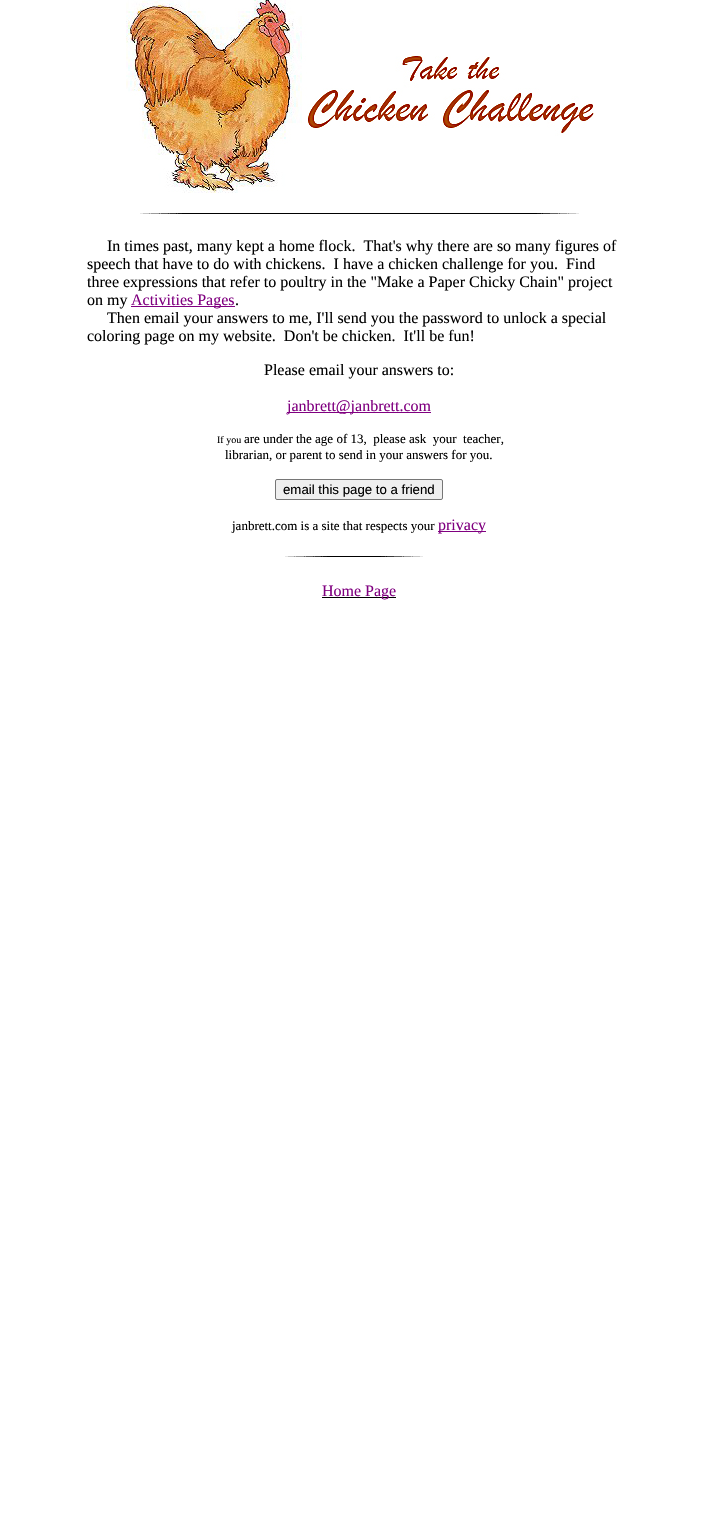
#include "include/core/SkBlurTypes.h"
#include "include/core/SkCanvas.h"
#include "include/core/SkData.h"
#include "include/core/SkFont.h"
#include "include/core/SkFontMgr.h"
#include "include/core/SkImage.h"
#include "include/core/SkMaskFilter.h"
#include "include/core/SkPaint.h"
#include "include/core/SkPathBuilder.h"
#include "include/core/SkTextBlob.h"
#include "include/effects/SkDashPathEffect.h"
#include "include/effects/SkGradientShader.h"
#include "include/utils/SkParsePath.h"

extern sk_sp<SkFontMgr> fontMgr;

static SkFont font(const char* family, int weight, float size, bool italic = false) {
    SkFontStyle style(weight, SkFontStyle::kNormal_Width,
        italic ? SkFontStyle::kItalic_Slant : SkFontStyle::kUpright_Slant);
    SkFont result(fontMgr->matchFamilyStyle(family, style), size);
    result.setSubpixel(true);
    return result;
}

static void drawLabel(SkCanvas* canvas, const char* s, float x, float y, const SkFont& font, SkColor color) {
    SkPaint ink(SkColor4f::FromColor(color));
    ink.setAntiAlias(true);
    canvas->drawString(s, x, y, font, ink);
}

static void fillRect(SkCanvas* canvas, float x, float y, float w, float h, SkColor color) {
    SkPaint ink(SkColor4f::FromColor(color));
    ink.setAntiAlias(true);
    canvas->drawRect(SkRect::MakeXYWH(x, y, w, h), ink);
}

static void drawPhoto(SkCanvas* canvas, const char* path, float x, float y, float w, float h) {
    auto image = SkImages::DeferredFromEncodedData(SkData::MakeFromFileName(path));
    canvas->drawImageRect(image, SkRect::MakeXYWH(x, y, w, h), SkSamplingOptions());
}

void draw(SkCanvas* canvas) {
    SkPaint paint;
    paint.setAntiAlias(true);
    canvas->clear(0xFFFFFFFF);
    drawPhoto(canvas, "assets/img1.png", 126, 0, 468, 193);
    drawPhoto(canvas, "assets/img2.png", 140, 213, 439, 1);
    SkFont font1 = font("Liberation Serif", 400, 16);
    drawLabel(canvas, "In times past, many kept a home flock.  That's why there are so many figures of", 107, 251, font1, 0xFF000000);
    drawLabel(canvas, "speech that have to do with chickens.  I have a chicken challenge for you.  Find", 87, 269, font1, 0xFF000000);
    drawLabel(canvas, "three expressions that refer to poultry in the \"Make a Paper Chicky Chain\" project", 87, 287, font1, 0xFF000000);
    drawLabel(canvas, "on my", 87, 305, font1, 0xFF000000);
    fillRect(canvas, 131, 306, 104, 1, 0xFF800080);
    drawLabel(canvas, "Activities Pages", 131, 305, font1, 0xFF800080);
    drawLabel(canvas, ".", 235, 305, font1, 0xFF000000);
    drawLabel(canvas, "Then email your answers to me, I'll send you the password to unlock a special", 107, 323, font1, 0xFF000000);
    drawLabel(canvas, "coloring page on my website.  Don't be chicken.  It'll be fun!", 87, 341, font1, 0xFF000000);
    drawLabel(canvas, "Please email your answers to:", 264, 375, font1, 0xFF000000);
    fillRect(canvas, 287, 412, 144, 1, 0xFF800080);
    drawLabel(canvas, "janbrett@janbrett.com", 287, 411, font1, 0xFF800080);
    SkFont font2 = font("Liberation Serif", 400, 10);
    drawLabel(canvas, "If you", 217, 443, font2, 0xFF000000);
    SkFont font3 = font("Liberation Serif", 400, 13);
    drawLabel(canvas, "are under the age of 13,  please ask  your  teacher,", 244, 443, font3, 0xFF000000);
    drawLabel(canvas, "librarian, or parent to send in your answers for you.", 225, 459, font3, 0xFF000000);
    paint.setColor(0xFFEFEFEF);
    canvas->drawRoundRect(SkRect::MakeXYWH(275.5f, 479.5f, 167, 20), 1.5f, 1.5f, paint);
    paint.setStroke(true);
    paint.setStrokeWidth(1);
    paint.setColor(0xFF767676);
    canvas->drawRoundRect(SkRect::MakeXYWH(275.5f, 479.5f, 167, 20), 1.5f, 1.5f, paint);
    SkFont font4 = font("Liberation Sans", 400, 13.25f);
    drawLabel(canvas, "email this page to a friend", 283, 494, font4, 0xFF000000);
    drawLabel(canvas, "janbrett.com is a site that respects your", 232, 530, font3, 0xFF000000);
    fillRect(canvas, 438, 531, 48, 1, 0xFF800080);
    drawLabel(canvas, "privacy", 438, 530, font1, 0xFF800080);
    drawPhoto(canvas, "assets/img3.png", 285, 556, 138, 1);
    fillRect(canvas, 322, 597, 74, 1, 0xFF000000);
    drawLabel(canvas, "Home Page", 322, 596, font1, 0xFF800080);
}
